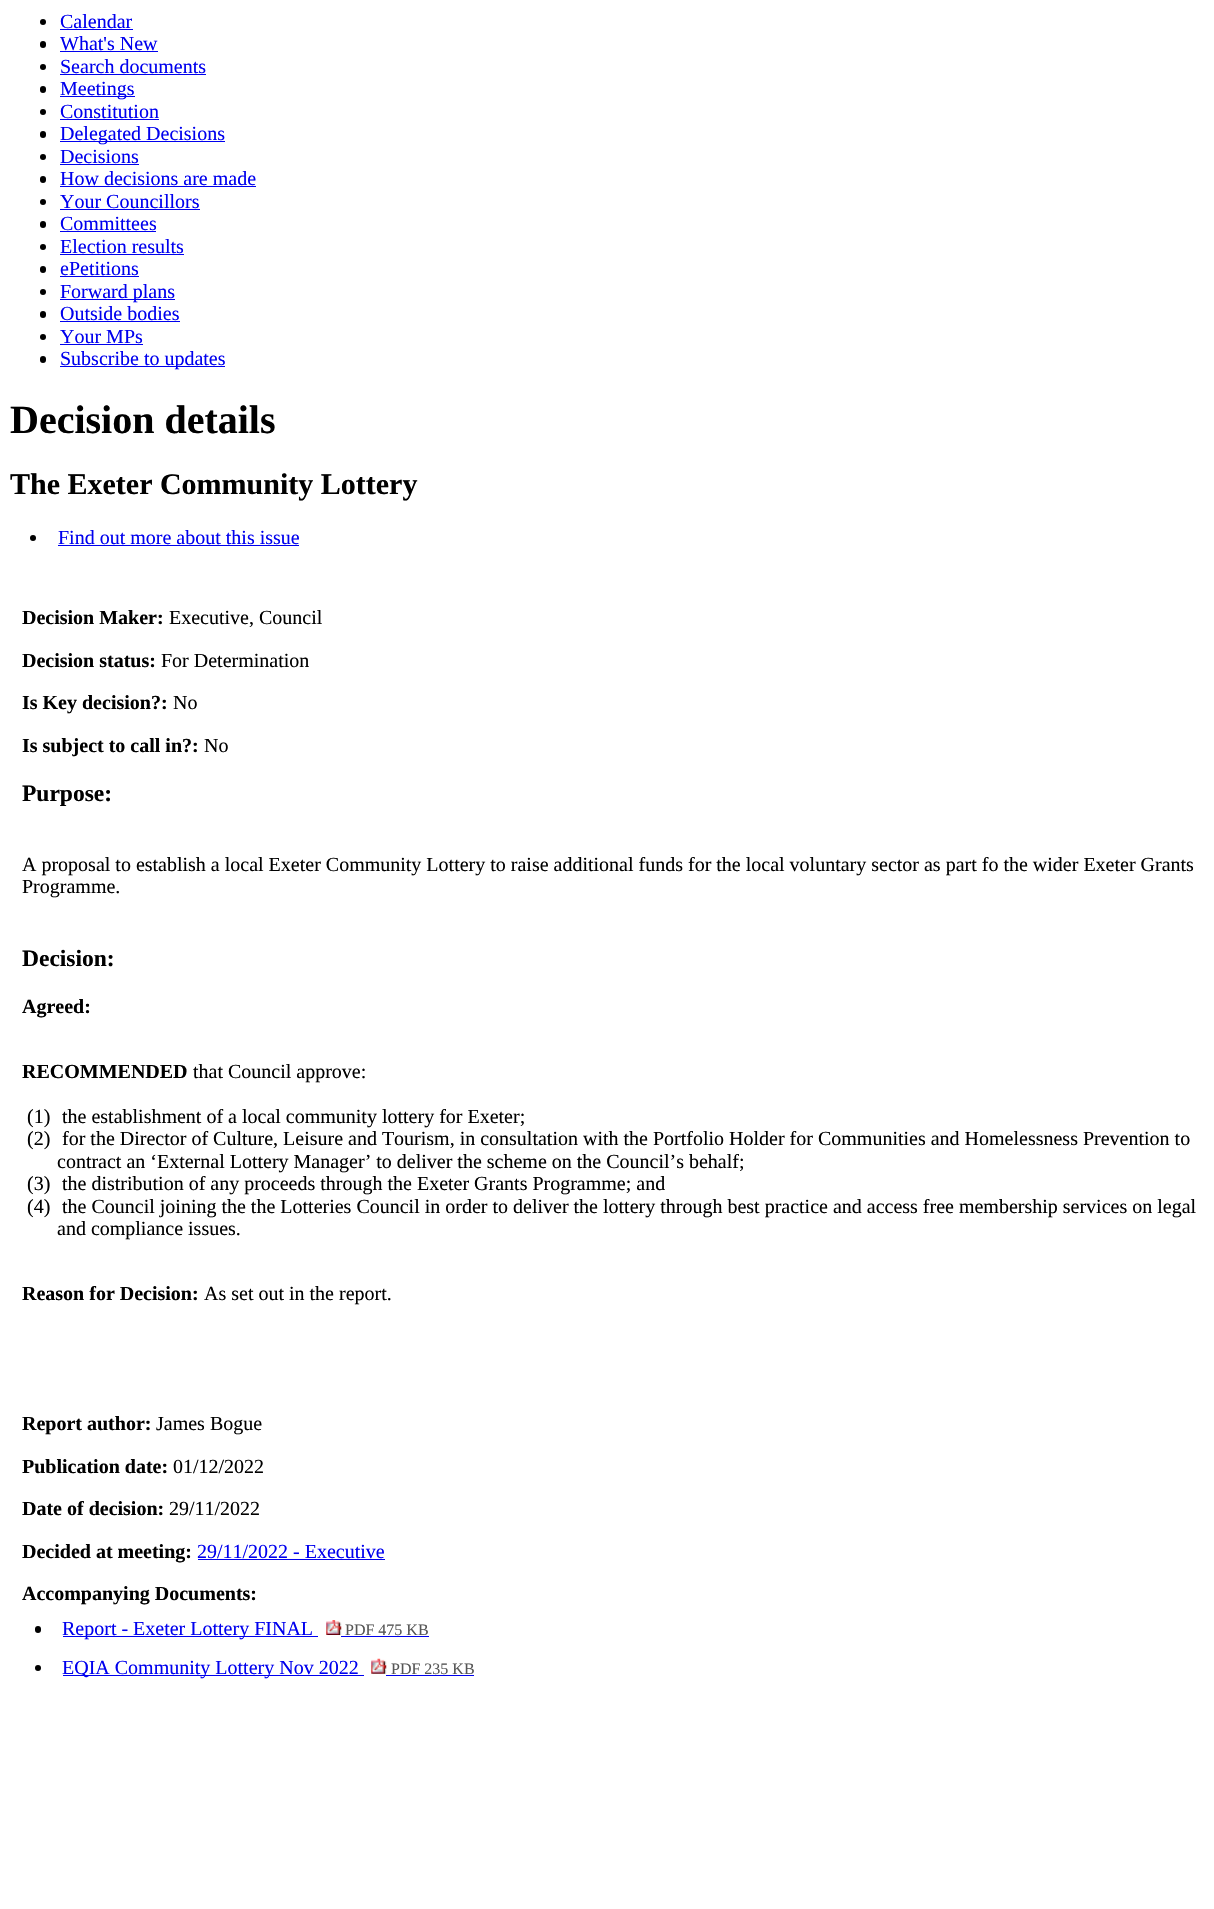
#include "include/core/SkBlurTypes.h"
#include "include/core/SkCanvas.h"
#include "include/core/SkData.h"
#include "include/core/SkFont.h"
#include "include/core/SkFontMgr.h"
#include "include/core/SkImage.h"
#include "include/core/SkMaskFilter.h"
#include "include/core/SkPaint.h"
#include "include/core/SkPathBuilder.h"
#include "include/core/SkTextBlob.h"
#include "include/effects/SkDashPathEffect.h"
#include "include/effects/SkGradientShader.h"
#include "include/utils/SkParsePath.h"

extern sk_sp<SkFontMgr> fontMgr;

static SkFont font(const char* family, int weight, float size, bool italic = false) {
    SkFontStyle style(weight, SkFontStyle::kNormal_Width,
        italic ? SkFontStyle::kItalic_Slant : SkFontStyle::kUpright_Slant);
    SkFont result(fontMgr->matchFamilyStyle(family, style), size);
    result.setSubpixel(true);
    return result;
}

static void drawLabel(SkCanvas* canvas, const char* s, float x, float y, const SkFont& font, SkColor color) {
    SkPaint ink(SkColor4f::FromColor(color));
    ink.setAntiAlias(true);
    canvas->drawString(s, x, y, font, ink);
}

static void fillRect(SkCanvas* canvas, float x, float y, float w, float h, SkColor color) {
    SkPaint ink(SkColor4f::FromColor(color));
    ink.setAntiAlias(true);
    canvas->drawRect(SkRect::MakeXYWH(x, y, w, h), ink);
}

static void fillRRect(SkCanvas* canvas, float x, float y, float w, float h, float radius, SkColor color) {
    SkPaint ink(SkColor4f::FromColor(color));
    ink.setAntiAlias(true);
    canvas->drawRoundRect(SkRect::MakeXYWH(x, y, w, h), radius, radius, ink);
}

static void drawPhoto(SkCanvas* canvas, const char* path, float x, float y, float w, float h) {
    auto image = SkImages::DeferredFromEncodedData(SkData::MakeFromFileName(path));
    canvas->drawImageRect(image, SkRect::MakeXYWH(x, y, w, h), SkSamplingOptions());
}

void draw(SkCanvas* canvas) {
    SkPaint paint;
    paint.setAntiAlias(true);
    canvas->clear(0xFFFFFFFF);
    paint.setColor(0xFF000000);
    canvas->drawCircle(43, 22, 3, paint);
    SkFont font1 = font("Liberation Serif", 400, 20);
    drawLabel(canvas, "Calendar", 60, 28, font1, 0xFF0000EE);
    fillRect(canvas, 60, 29, 73, 1, 0xFF0000EE);
    fillRRect(canvas, 40, 41, 6, 7, 3, 0xFF000000);
    drawLabel(canvas, "What's New", 60, 50, font1, 0xFF0000EE);
    fillRect(canvas, 60, 51, 98, 1, 0xFF0000EE);
    canvas->drawCircle(43, 67, 3, paint);
    drawLabel(canvas, "Search documents", 60, 73, font1, 0xFF0000EE);
    fillRect(canvas, 60, 74, 146, 1, 0xFF0000EE);
    fillRRect(canvas, 40, 86, 6, 7, 3, 0xFF000000);
    fillRect(canvas, 60, 96, 75, 1, 0xFF0000EE);
    drawLabel(canvas, "Meetings", 60, 95, font1, 0xFF0000EE);
    canvas->drawCircle(43, 112, 3, paint);
    drawLabel(canvas, "Constitution", 60, 118, font1, 0xFF0000EE);
    fillRect(canvas, 60, 119, 99, 1, 0xFF0000EE);
    fillRRect(canvas, 40, 131, 6, 7, 3, 0xFF000000);
    fillRect(canvas, 60, 141, 165, 1, 0xFF0000EE);
    drawLabel(canvas, "Delegated Decisions", 60, 140, font1, 0xFF0000EE);
    canvas->drawCircle(43, 157, 3, paint);
    drawLabel(canvas, "Decisions", 60, 163, font1, 0xFF0000EE);
    fillRect(canvas, 60, 164, 79, 1, 0xFF0000EE);
    fillRRect(canvas, 40, 176, 6, 7, 3, 0xFF000000);
    drawLabel(canvas, "How decisions are made", 60, 185, font1, 0xFF0000EE);
    fillRect(canvas, 60, 186, 196, 1, 0xFF0000EE);
    canvas->drawCircle(43, 202, 3, paint);
    drawLabel(canvas, "Your Councillors", 60, 208, font1, 0xFF0000EE);
    fillRect(canvas, 60, 209, 140, 1, 0xFF0000EE);
    fillRRect(canvas, 40, 221, 6, 7, 3, 0xFF000000);
    drawLabel(canvas, "Committees", 60, 230, font1, 0xFF0000EE);
    fillRect(canvas, 60, 231, 96, 1, 0xFF0000EE);
    canvas->drawCircle(43, 247, 3, paint);
    drawLabel(canvas, "Election results", 60, 253, font1, 0xFF0000EE);
    fillRect(canvas, 60, 254, 124, 1, 0xFF0000EE);
    fillRRect(canvas, 40, 266, 6, 7, 3, 0xFF000000);
    drawLabel(canvas, "ePetitions", 60, 275, font1, 0xFF0000EE);
    fillRect(canvas, 60, 276, 79, 1, 0xFF0000EE);
    canvas->drawCircle(43, 292, 3, paint);
    fillRect(canvas, 60, 299, 115, 1, 0xFF0000EE);
    drawLabel(canvas, "Forward plans", 60, 298, font1, 0xFF0000EE);
    fillRRect(canvas, 40, 311, 6, 7, 3, 0xFF000000);
    drawLabel(canvas, "Outside bodies", 60, 320, font1, 0xFF0000EE);
    fillRect(canvas, 60, 321, 120, 1, 0xFF0000EE);
    canvas->drawCircle(43, 337, 3, paint);
    drawLabel(canvas, "Your MPs", 60, 343, font1, 0xFF0000EE);
    fillRect(canvas, 60, 344, 83, 1, 0xFF0000EE);
    fillRRect(canvas, 40, 356, 6, 7, 3, 0xFF000000);
    fillRect(canvas, 60, 366, 165, 1, 0xFF0000EE);
    drawLabel(canvas, "Subscribe to updates", 60, 365, font1, 0xFF0000EE);
    SkFont font2 = font("Liberation Serif", 700, 40);
    drawLabel(canvas, "Decision details", 10, 433, font2, 0xFF000000);
    SkFont font3 = font("Liberation Serif", 700, 30);
    drawLabel(canvas, "The Exeter Community Lottery", 10, 494, font3, 0xFF000000);
    canvas->drawCircle(33, 538, 3, paint);
    drawLabel(canvas, "Find out more about this issue", 58, 544, font1, 0xFF0000EE);
    fillRect(canvas, 58, 545, 241, 1, 0xFF0000EE);
    SkFont font4 = font("Liberation Serif", 700, 20);
    drawLabel(canvas, "Decision Maker:", 22, 624, font4, 0xFF000000);
    drawLabel(canvas, "Executive, Council", 169, 624, font1, 0xFF000000);
    drawLabel(canvas, "Decision status:", 22, 667, font4, 0xFF000000);
    drawLabel(canvas, "For Determination", 161, 667, font1, 0xFF000000);
    drawLabel(canvas, "Is Key decision?:", 22, 709, font4, 0xFF000000);
    drawLabel(canvas, "No", 173, 709, font1, 0xFF000000);
    drawLabel(canvas, "Is subject to call in?:", 22, 752, font4, 0xFF000000);
    drawLabel(canvas, "No", 204, 752, font1, 0xFF000000);
    SkFont font5 = font("Liberation Serif", 700, 23.5f);
    drawLabel(canvas, "Purpose:", 22, 801, font5, 0xFF000000);
    drawLabel(canvas, "A proposal to establish a local Exeter Community Lottery to raise additional funds for the local voluntary sector as part fo the wider Exeter Grants", 22, 871, font1, 0xFF000000);
    drawLabel(canvas, "Programme.", 22, 893, font1, 0xFF000000);
    drawLabel(canvas, "Decision:", 22, 966, font5, 0xFF000000);
    drawLabel(canvas, "Agreed:", 22, 1013, font4, 0xFF000000);
    drawLabel(canvas, "RECOMMENDED", 22, 1078, font4, 0xFF000000);
    drawLabel(canvas, "that Council approve:", 193, 1078, font1, 0xFF000000);
    drawLabel(canvas, "(1)", 27, 1123, font1, 0xFF000000);
    drawLabel(canvas, "the establishment of a local community lottery for Exeter;", 62, 1123, font1, 0xFF000000);
    drawLabel(canvas, "(2)", 27, 1145, font1, 0xFF000000);
    drawLabel(canvas, "for the Director of Culture, Leisure and Tourism, in consultation with the Portfolio Holder for Communities and Homelessness Prevention to", 62, 1145, font1, 0xFF000000);
    drawLabel(canvas, "contract an ‘External Lottery Manager’ to deliver the scheme on the Council’s behalf;", 57, 1168, font1, 0xFF000000);
    drawLabel(canvas, "(3)", 27, 1190, font1, 0xFF000000);
    drawLabel(canvas, "the distribution of any proceeds through the Exeter Grants Programme; and", 62, 1190, font1, 0xFF000000);
    drawLabel(canvas, "(4)", 27, 1213, font1, 0xFF000000);
    drawLabel(canvas, "the Council joining the the Lotteries Council in order to deliver the lottery through best practice and access free membership services on legal", 62, 1213, font1, 0xFF000000);
    drawLabel(canvas, "and compliance issues.", 57, 1235, font1, 0xFF000000);
    drawLabel(canvas, "Reason for Decision:", 22, 1300, font4, 0xFF000000);
    drawLabel(canvas, "As set out in the report.", 204, 1300, font1, 0xFF000000);
    drawLabel(canvas, "Report author:", 22, 1430, font4, 0xFF000000);
    drawLabel(canvas, "James Bogue", 156, 1430, font1, 0xFF000000);
    drawLabel(canvas, "Publication date:", 22, 1473, font4, 0xFF000000);
    drawLabel(canvas, "01/12/2022", 173, 1473, font1, 0xFF000000);
    drawLabel(canvas, "Date of decision:", 22, 1515, font4, 0xFF000000);
    drawLabel(canvas, "29/11/2022", 169, 1515, font1, 0xFF000000);
    drawLabel(canvas, "Decided at meeting:", 22, 1558, font4, 0xFF000000);
    drawLabel(canvas, "29/11/2022 - Executive", 197, 1558, font1, 0xFF0000EE);
    fillRect(canvas, 198, 1559, 187, 1, 0xFF0000EE);
    drawLabel(canvas, "Accompanying Documents:", 22, 1600, font4, 0xFF000000);
    fillRRect(canvas, 35, 1626, 6, 7, 3, 0xFF000000);
    fillRect(canvas, 63, 1636, 255, 1, 0xFF0000EE);
    drawLabel(canvas, "Report - Exeter Lottery FINAL", 62, 1635, font1, 0xFF0000EE);
    drawPhoto(canvas, "assets/img1.png", 326, 1620, 16, 15);
    SkFont font6 = font("Liberation Serif", 400, 16);
    drawLabel(canvas, "PDF 475 KB", 345, 1635, font6, 0xFF555555);
    fillRect(canvas, 341, 1636, 88, 1, 0xFF0000EE);
    canvas->drawCircle(38, 1668, 3, paint);
    fillRect(canvas, 63, 1675, 301, 1, 0xFF0000EE);
    drawLabel(canvas, "EQIA Community Lottery Nov 2022", 62, 1674, font1, 0xFF0000EE);
    drawPhoto(canvas, "assets/img2.png", 371, 1658, 16, 16);
    drawLabel(canvas, "PDF 235 KB", 391, 1674, font6, 0xFF555555);
    fillRect(canvas, 386, 1675, 88, 1, 0xFF0000EE);
}
